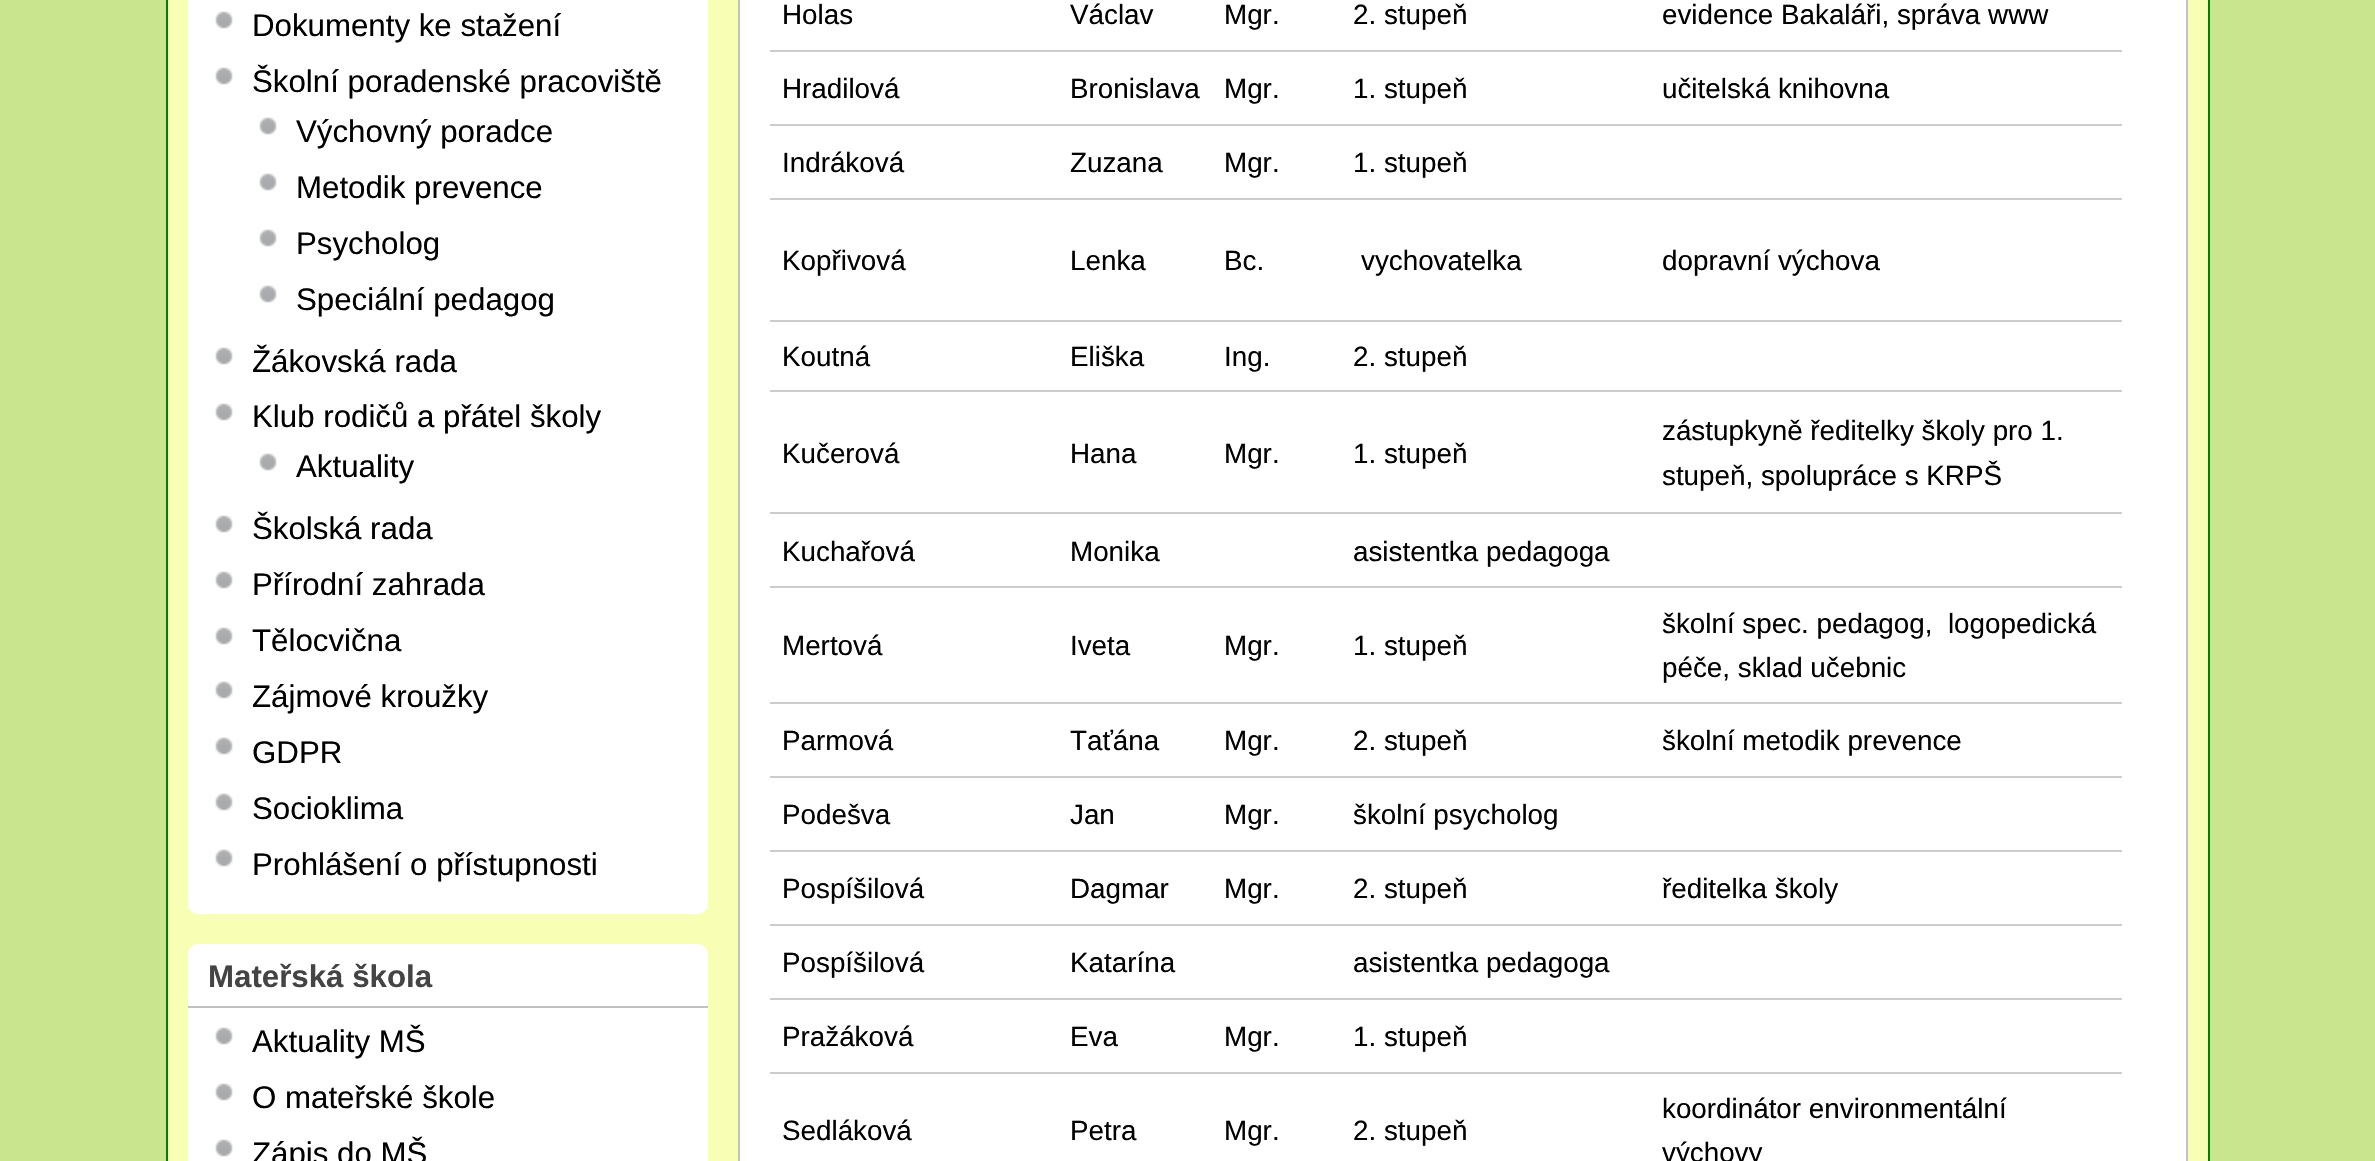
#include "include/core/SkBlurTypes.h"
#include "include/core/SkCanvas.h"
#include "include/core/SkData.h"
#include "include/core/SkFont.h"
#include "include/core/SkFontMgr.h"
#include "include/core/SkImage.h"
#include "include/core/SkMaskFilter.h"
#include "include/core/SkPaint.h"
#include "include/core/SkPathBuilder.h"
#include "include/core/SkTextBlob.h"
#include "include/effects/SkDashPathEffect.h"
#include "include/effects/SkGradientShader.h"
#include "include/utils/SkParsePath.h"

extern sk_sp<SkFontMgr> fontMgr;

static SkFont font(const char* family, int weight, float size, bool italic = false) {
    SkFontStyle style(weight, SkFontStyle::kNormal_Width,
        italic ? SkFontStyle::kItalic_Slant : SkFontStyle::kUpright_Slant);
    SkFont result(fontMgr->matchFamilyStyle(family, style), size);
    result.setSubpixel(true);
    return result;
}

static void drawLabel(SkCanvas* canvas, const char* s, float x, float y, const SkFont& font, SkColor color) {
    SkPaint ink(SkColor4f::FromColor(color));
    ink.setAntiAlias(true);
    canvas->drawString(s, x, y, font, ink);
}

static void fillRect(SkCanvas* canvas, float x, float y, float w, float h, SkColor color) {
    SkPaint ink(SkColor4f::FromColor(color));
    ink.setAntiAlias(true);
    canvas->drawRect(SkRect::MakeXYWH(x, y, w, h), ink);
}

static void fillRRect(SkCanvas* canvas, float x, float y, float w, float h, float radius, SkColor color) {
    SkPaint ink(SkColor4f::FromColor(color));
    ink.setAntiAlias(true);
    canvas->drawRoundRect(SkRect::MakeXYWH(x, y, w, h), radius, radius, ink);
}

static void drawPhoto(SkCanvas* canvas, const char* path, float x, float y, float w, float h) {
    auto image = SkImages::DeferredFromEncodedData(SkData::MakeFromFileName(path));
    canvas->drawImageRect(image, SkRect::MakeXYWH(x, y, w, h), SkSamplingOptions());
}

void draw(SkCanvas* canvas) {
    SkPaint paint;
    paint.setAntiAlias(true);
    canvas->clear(0xFFC9E58E);
    paint.setColor(0xFFF8FFB5);
    canvas->drawRect(SkRect::MakeXYWH(167, -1, 2042, 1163), paint);
    paint.setStroke(true);
    paint.setStrokeWidth(2);
    paint.setColor(0xFF008000);
    canvas->drawRect(SkRect::MakeXYWH(167, -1, 2042, 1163), paint);
    fillRRect(canvas, 188, -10, 520, 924, 10, 0xFFFFFFFF);
    drawPhoto(canvas, "assets/img1.png", 215, 11, 18, 18);
    SkFont font1 = font("Liberation Sans", 400, 31.25f);
    drawLabel(canvas, "Dokumenty ke stažení", 252, 36, font1, 0xFF000000);
    drawPhoto(canvas, "assets/img1.png", 215, 67, 18, 18);
    drawLabel(canvas, "Školní poradenské pracoviště", 252, 92, font1, 0xFF000000);
    drawPhoto(canvas, "assets/img1.png", 259, 117, 18, 18);
    drawLabel(canvas, "Výchovný poradce", 296, 142, font1, 0xFF000000);
    drawPhoto(canvas, "assets/img1.png", 259, 173, 18, 18);
    drawLabel(canvas, "Metodik prevence", 296, 198, font1, 0xFF000000);
    drawPhoto(canvas, "assets/img1.png", 259, 229, 18, 18);
    drawLabel(canvas, "Psycholog", 296, 254, font1, 0xFF000000);
    drawPhoto(canvas, "assets/img1.png", 259, 285, 18, 18);
    drawLabel(canvas, "Speciální pedagog", 296, 310, font1, 0xFF000000);
    drawPhoto(canvas, "assets/img1.png", 215, 347, 18, 18);
    drawLabel(canvas, "Žákovská rada", 252, 372, font1, 0xFF000000);
    drawPhoto(canvas, "assets/img1.png", 215, 403, 18, 18);
    drawLabel(canvas, "Klub rodičů a přátel školy", 252, 427, font1, 0xFF000000);
    drawPhoto(canvas, "assets/img1.png", 259, 453, 18, 18);
    drawLabel(canvas, "Aktuality", 296, 477, font1, 0xFF000000);
    drawPhoto(canvas, "assets/img1.png", 215, 515, 18, 18);
    drawLabel(canvas, "Školská rada", 252, 539, font1, 0xFF000000);
    drawPhoto(canvas, "assets/img1.png", 215, 571, 18, 18);
    drawLabel(canvas, "Přírodní zahrada", 252, 595, font1, 0xFF000000);
    drawPhoto(canvas, "assets/img1.png", 215, 627, 18, 18);
    drawLabel(canvas, "Tělocvična", 252, 651, font1, 0xFF000000);
    drawPhoto(canvas, "assets/img1.png", 215, 681, 18, 18);
    drawLabel(canvas, "Zájmové kroužky", 252, 707, font1, 0xFF000000);
    drawPhoto(canvas, "assets/img1.png", 215, 737, 18, 18);
    drawLabel(canvas, "GDPR", 252, 763, font1, 0xFF000000);
    drawPhoto(canvas, "assets/img1.png", 215, 793, 18, 18);
    drawLabel(canvas, "Socioklima", 252, 819, font1, 0xFF000000);
    drawPhoto(canvas, "assets/img1.png", 215, 849, 18, 18);
    drawLabel(canvas, "Prohlášení o přístupnosti", 252, 875, font1, 0xFF000000);
    fillRRect(canvas, 188, 944, 520, 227, 10, 0xFFFFFFFF);
    fillRect(canvas, 188, 1006, 520, 2, 0xFFC0C0C0);
    SkFont font2 = font("Liberation Sans", 700, 31.25f);
    drawLabel(canvas, "Mateřská škola", 208, 987, font2, 0xFF444444);
    drawPhoto(canvas, "assets/img1.png", 215, 1027, 18, 18);
    drawLabel(canvas, "Aktuality MŠ", 252, 1052, font1, 0xFF000000);
    drawPhoto(canvas, "assets/img1.png", 215, 1083, 18, 18);
    drawLabel(canvas, "O mateřské škole", 252, 1108, font1, 0xFF000000);
    drawPhoto(canvas, "assets/img1.png", 215, 1139, 18, 18);
    drawLabel(canvas, "Zápis do MŠ", 252, 1164, font1, 0xFF000000);
    paint.setStroke(false);
    paint.setColor(0xFFFFFFFF);
    canvas->drawRect(SkRect::MakeXYWH(739, -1, 1448, 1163), paint);
    paint.setStroke(true);
    paint.setColor(0xFFC0C0C0);
    canvas->drawRect(SkRect::MakeXYWH(739, -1, 1448, 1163), paint);
    SkFont font3 = font("Liberation Sans", 400, 27.8f);
    drawLabel(canvas, "Holas", 782, 24, font3, 0xFF000000);
    drawLabel(canvas, "Václav", 1070, 24, font3, 0xFF000000);
    drawLabel(canvas, "Mgr.", 1224, 24, font3, 0xFF000000);
    drawLabel(canvas, "2. stupeň", 1353, 24, font3, 0xFF000000);
    fillRect(canvas, 770, 50, 1352, 2, 0xFFCCCCCC);
    drawLabel(canvas, "evidence Bakaláři, správa www", 1662, 24, font3, 0xFF000000);
    drawLabel(canvas, "Hradilová", 782, 98, font3, 0xFF000000);
    drawLabel(canvas, "Bronislava", 1070, 98, font3, 0xFF000000);
    drawLabel(canvas, "Mgr.", 1224, 98, font3, 0xFF000000);
    drawLabel(canvas, "1. stupeň", 1353, 98, font3, 0xFF000000);
    fillRect(canvas, 770, 124, 1352, 2, 0xFFCCCCCC);
    drawLabel(canvas, "učitelská knihovna", 1662, 98, font3, 0xFF000000);
    drawLabel(canvas, "Indráková", 782, 172, font3, 0xFF000000);
    drawLabel(canvas, "Zuzana", 1070, 172, font3, 0xFF000000);
    drawLabel(canvas, "Mgr.", 1224, 172, font3, 0xFF000000);
    drawLabel(canvas, "1. stupeň", 1353, 172, font3, 0xFF000000);
    fillRect(canvas, 770, 198, 1352, 2, 0xFFCCCCCC);
    drawLabel(canvas, "Kopřivová", 782, 270, font3, 0xFF000000);
    drawLabel(canvas, "Lenka", 1070, 270, font3, 0xFF000000);
    drawLabel(canvas, "Bc.", 1224, 270, font3, 0xFF000000);
    drawLabel(canvas, "vychovatelka", 1361, 270, font3, 0xFF000000);
    fillRect(canvas, 770, 320, 1352, 2, 0xFFCCCCCC);
    drawLabel(canvas, "dopravní výchova", 1662, 270, font3, 0xFF000000);
    drawLabel(canvas, "Koutná", 782, 366, font3, 0xFF000000);
    drawLabel(canvas, "Eliška", 1070, 366, font3, 0xFF000000);
    drawLabel(canvas, "Ing.", 1224, 366, font3, 0xFF000000);
    drawLabel(canvas, "2. stupeň", 1353, 366, font3, 0xFF000000);
    fillRect(canvas, 770, 390, 1352, 2, 0xFFCCCCCC);
    drawLabel(canvas, "Kučerová", 782, 463, font3, 0xFF000000);
    drawLabel(canvas, "Hana", 1070, 463, font3, 0xFF000000);
    drawLabel(canvas, "Mgr.", 1224, 463, font3, 0xFF000000);
    drawLabel(canvas, "1. stupeň", 1353, 463, font3, 0xFF000000);
    fillRect(canvas, 770, 512, 1352, 2, 0xFFCCCCCC);
    drawLabel(canvas, "zástupkyně ředitelky školy pro 1.", 1662, 440, font3, 0xFF000000);
    drawLabel(canvas, "stupeň, spolupráce s KRPŠ", 1662, 485, font3, 0xFF000000);
    drawLabel(canvas, "Kuchařová", 782, 561, font3, 0xFF000000);
    drawLabel(canvas, "Monika", 1070, 561, font3, 0xFF000000);
    drawLabel(canvas, "asistentka pedagoga", 1353, 561, font3, 0xFF000000);
    fillRect(canvas, 770, 586, 1352, 2, 0xFFCCCCCC);
    drawLabel(canvas, "Mertová", 782, 655, font3, 0xFF000000);
    drawLabel(canvas, "Iveta", 1070, 655, font3, 0xFF000000);
    drawLabel(canvas, "Mgr.", 1224, 655, font3, 0xFF000000);
    drawLabel(canvas, "1. stupeň", 1353, 655, font3, 0xFF000000);
    fillRect(canvas, 770, 702, 1352, 2, 0xFFCCCCCC);
    drawLabel(canvas, "školní spec. pedagog,  logopedická", 1662, 633, font3, 0xFF000000);
    drawLabel(canvas, "péče, sklad učebnic", 1662, 677, font3, 0xFF000000);
    drawLabel(canvas, "Parmová", 782, 750, font3, 0xFF000000);
    drawLabel(canvas, "Taťána", 1070, 750, font3, 0xFF000000);
    drawLabel(canvas, "Mgr.", 1224, 750, font3, 0xFF000000);
    drawLabel(canvas, "2. stupeň", 1353, 750, font3, 0xFF000000);
    fillRect(canvas, 770, 776, 1352, 2, 0xFFCCCCCC);
    drawLabel(canvas, "školní metodik prevence", 1662, 750, font3, 0xFF000000);
    drawLabel(canvas, "Podešva", 782, 824, font3, 0xFF000000);
    drawLabel(canvas, "Jan", 1070, 824, font3, 0xFF000000);
    drawLabel(canvas, "Mgr.", 1224, 824, font3, 0xFF000000);
    drawLabel(canvas, "školní psycholog", 1353, 824, font3, 0xFF000000);
    fillRect(canvas, 770, 850, 1352, 2, 0xFFCCCCCC);
    drawLabel(canvas, "Pospíšilová", 782, 898, font3, 0xFF000000);
    drawLabel(canvas, "Dagmar", 1070, 898, font3, 0xFF000000);
    drawLabel(canvas, "Mgr.", 1224, 898, font3, 0xFF000000);
    drawLabel(canvas, "2. stupeň", 1353, 898, font3, 0xFF000000);
    fillRect(canvas, 770, 924, 1352, 2, 0xFFCCCCCC);
    drawLabel(canvas, "ředitelka školy", 1662, 898, font3, 0xFF000000);
    drawLabel(canvas, "Pospíšilová", 782, 972, font3, 0xFF000000);
    drawLabel(canvas, "Katarína", 1070, 972, font3, 0xFF000000);
    drawLabel(canvas, "asistentka pedagoga", 1353, 972, font3, 0xFF000000);
    fillRect(canvas, 770, 998, 1352, 2, 0xFFCCCCCC);
    drawLabel(canvas, "Pražáková", 782, 1046, font3, 0xFF000000);
    drawLabel(canvas, "Eva", 1070, 1046, font3, 0xFF000000);
    drawLabel(canvas, "Mgr.", 1224, 1046, font3, 0xFF000000);
    drawLabel(canvas, "1. stupeň", 1353, 1046, font3, 0xFF000000);
    fillRect(canvas, 770, 1072, 1352, 2, 0xFFCCCCCC);
    drawLabel(canvas, "Sedláková", 782, 1140, font3, 0xFF000000);
    drawLabel(canvas, "Petra", 1070, 1140, font3, 0xFF000000);
    drawLabel(canvas, "Mgr.", 1224, 1140, font3, 0xFF000000);
    drawLabel(canvas, "2. stupeň", 1353, 1140, font3, 0xFF000000);
    drawLabel(canvas, "koordinátor environmentální", 1662, 1118, font3, 0xFF000000);
    drawLabel(canvas, "výchovy", 1662, 1162, font3, 0xFF000000);
}
